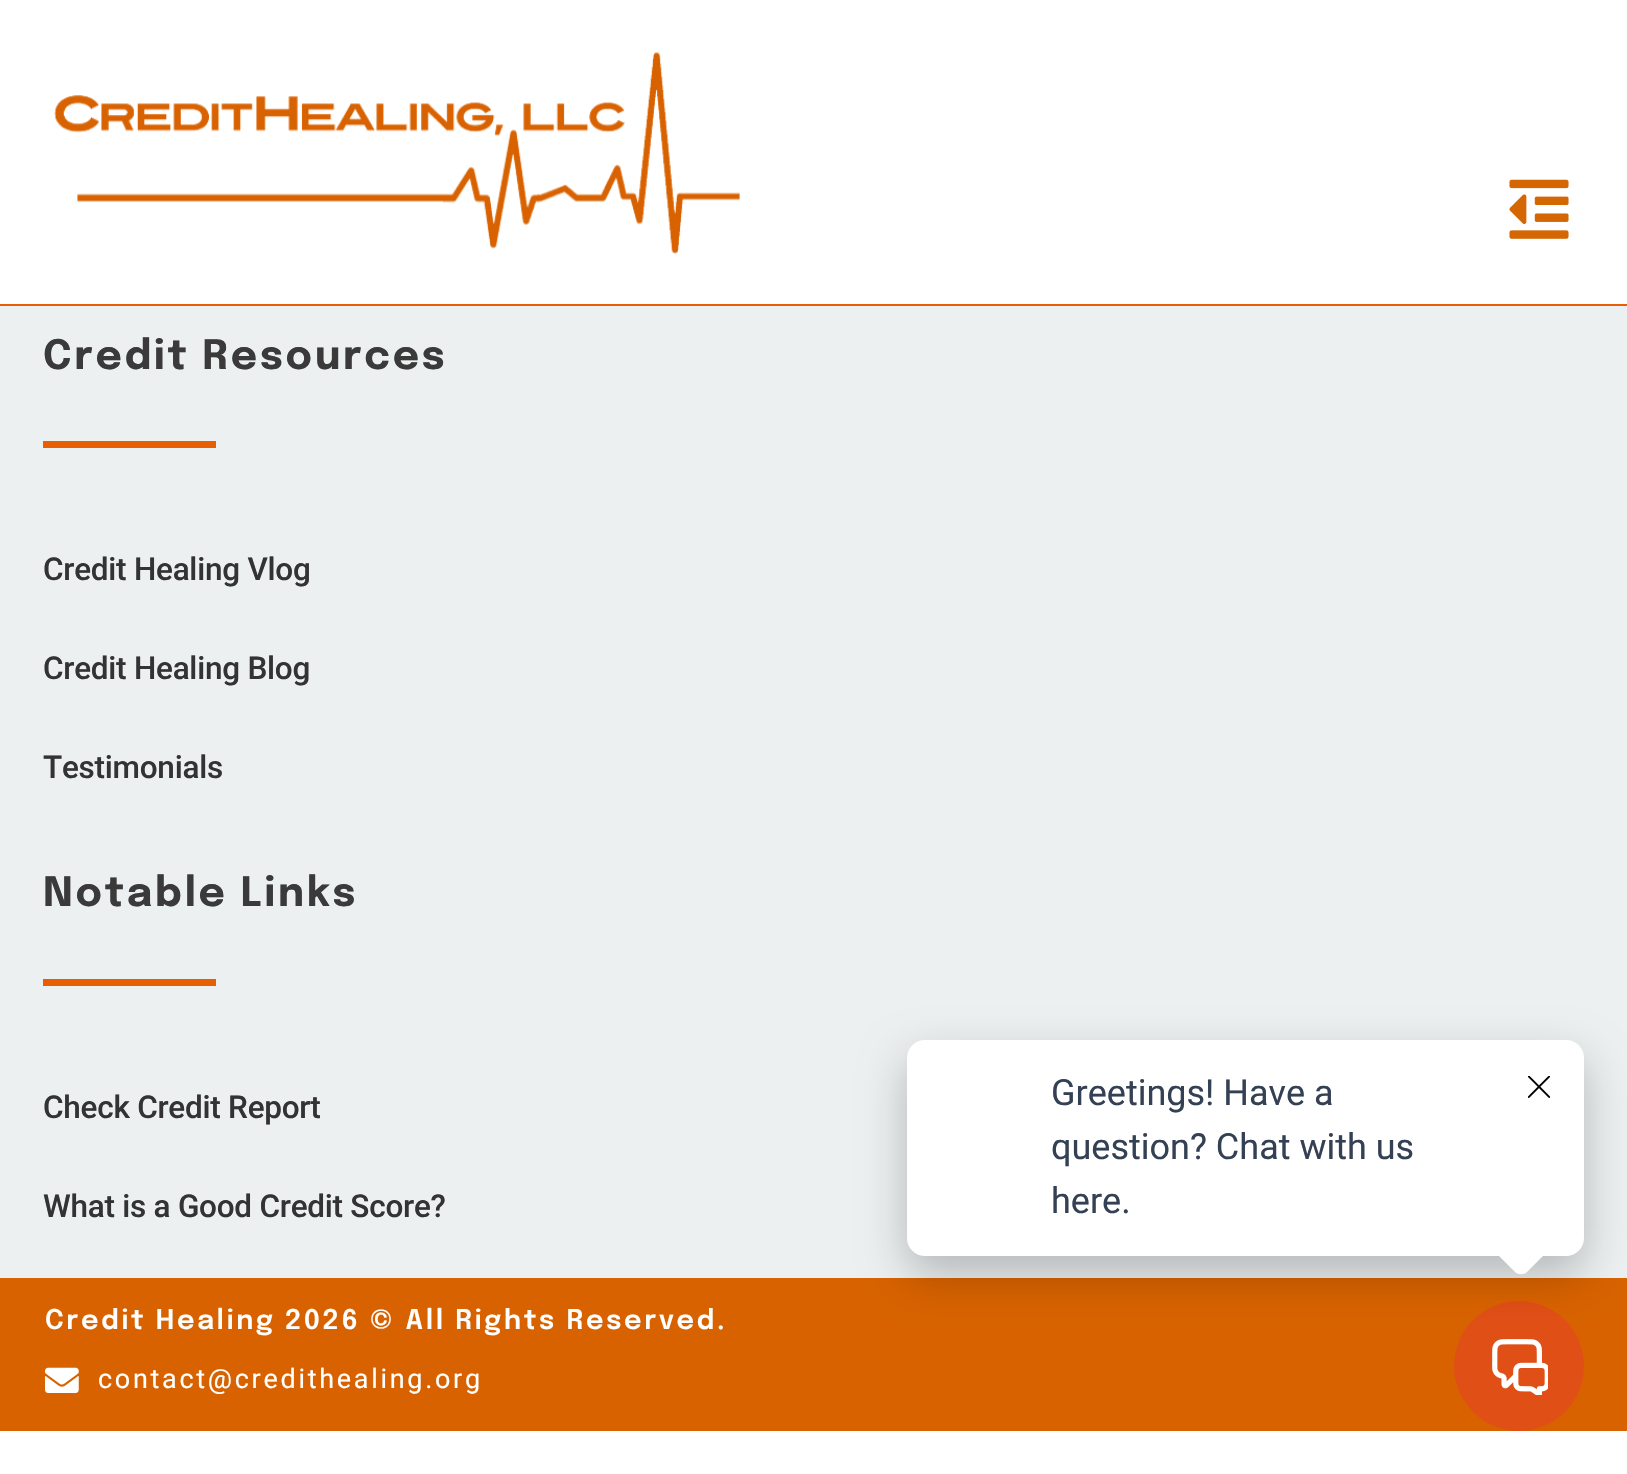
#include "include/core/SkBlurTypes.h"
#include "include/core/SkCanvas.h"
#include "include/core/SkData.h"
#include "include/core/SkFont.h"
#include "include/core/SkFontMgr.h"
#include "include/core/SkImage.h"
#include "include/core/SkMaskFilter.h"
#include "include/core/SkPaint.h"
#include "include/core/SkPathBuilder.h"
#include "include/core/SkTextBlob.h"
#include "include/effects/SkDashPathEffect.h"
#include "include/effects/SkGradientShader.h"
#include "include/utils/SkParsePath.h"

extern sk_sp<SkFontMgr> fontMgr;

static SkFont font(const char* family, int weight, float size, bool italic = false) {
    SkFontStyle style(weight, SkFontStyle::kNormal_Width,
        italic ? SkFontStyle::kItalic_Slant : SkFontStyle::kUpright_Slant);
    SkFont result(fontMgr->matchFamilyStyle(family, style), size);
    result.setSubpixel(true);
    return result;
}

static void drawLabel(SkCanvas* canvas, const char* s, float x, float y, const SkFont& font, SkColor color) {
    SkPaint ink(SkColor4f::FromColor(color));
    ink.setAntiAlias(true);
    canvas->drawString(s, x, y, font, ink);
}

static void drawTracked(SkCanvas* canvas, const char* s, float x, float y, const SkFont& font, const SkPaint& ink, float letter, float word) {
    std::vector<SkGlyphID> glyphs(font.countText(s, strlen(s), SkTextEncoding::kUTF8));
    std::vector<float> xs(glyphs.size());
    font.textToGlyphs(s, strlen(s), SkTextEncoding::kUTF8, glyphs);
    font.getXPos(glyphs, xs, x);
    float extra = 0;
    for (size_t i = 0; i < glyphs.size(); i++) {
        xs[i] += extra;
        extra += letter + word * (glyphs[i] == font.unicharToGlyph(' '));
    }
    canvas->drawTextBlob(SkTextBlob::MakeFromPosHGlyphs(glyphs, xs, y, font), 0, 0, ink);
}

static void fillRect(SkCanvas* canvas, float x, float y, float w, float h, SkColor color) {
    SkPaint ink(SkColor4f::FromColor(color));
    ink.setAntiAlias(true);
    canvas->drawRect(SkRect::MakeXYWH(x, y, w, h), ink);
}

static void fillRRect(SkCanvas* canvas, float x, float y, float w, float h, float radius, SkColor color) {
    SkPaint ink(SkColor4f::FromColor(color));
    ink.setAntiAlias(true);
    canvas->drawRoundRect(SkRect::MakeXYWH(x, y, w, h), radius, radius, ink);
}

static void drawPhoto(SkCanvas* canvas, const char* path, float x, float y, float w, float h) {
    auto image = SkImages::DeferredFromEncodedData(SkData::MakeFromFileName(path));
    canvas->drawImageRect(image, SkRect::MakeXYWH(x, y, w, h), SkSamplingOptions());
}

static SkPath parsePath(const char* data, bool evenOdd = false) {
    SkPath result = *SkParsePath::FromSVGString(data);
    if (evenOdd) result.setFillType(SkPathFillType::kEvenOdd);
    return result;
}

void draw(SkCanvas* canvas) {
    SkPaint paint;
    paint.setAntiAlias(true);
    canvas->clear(0xFFFFFFFF);
    fillRect(canvas, 0, 304, 1627, 2, 0xFFE85E02);
    drawPhoto(canvas, "assets/img1.png", 54, 52, 686, 202);
    drawPhoto(canvas, "assets/img2.png", 1509, 179, 60, 60);
    fillRect(canvas, 0, 306, 1627, 972, 0xFFECF0F1);
    SkFont font1 = font("Epilogue", 700, 40.5f);
    paint.setColor(0xFF3A3A3A);
    drawTracked(canvas, "Credit Resources", 43, 369, font1, paint, 2.7f, 0);
    fillRect(canvas, 43, 441, 173, 7, 0xFFE85E02);
    SkFont font2 = font("Roboto", 500, 31.5f);
    paint.setColor(0xFF333333);
    drawTracked(canvas, "Credit Healing Vlog", 43, 580, font2, paint, -0.25f, 0);
    drawTracked(canvas, "Credit Healing Blog", 43, 679, font2, paint, -0.25f, 0);
    drawTracked(canvas, "Testimonials", 43, 778, font2, paint, -0.25f, 0);
    paint.setColor(0xFF3A3A3A);
    drawTracked(canvas, "Notable Links", 43, 906, font1, paint, 2.7f, 0);
    fillRect(canvas, 43, 979, 173, 7, 0xFFE85E02);
    paint.setColor(0xFF333333);
    drawTracked(canvas, "Check Credit Report", 43, 1118, font2, paint, -0.25f, 0);
    drawTracked(canvas, "What is a Good Credit Score?", 43, 1217, font2, paint, -0.25f, 0);
    fillRect(canvas, 0, 1278, 1627, 153, 0xFFD86200);
    paint.setColor(0xFFE04F16);
    canvas->drawCircle(1519, 1366, 65, paint);
    drawPhoto(canvas, "assets/img4.png", 1492, 1339, 56, 56);
    paint.setColor(0x3D000000);
    paint.setMaskFilter(SkMaskFilter::MakeBlur(kNormal_SkBlurStyle, 22.5f));
    canvas->drawRoundRect(SkRect::MakeXYWH(907, 1058, 677, 216), 18, 18, paint);
    paint.setMaskFilter(nullptr);
    fillRRect(canvas, 907, 1040, 677, 216, 18, 0xFFFFFFFF);
    SkFont font3 = font("Roboto", 400, 36);
    drawLabel(canvas, "Greetings! Have a", 1051, 1105, font3, 0xFF344054);
    drawLabel(canvas, "question? Chat with us", 1051, 1159, font3, 0xFF344054);
    drawLabel(canvas, "here.", 1051, 1213, font3, 0xFF344054);
    paint.setColor(0xFFFFFFFF);
    canvas->drawPath(parsePath("M1527 1221L1546 1240C1550 1244 1550 1249 1546 1253L1527 1272C1524 1275 1518 1275 1515 1272L1496 1253C1492 1249 1492 1244 1496 1240L1515 1221C1518 1218 1524 1218 1527 1221Z"), paint);
    drawPhoto(canvas, "assets/img3.png", 1528, 1076, 22, 22);
    SkFont font4 = font("Epilogue", 600, 27);
    drawTracked(canvas, "Credit Healing 2026 © All Rights Reserved.", 45, 1329, font4, paint, 2.7f, 0);
    drawPhoto(canvas, "assets/img5.png", 45, 1367, 34, 26);
    SkFont font5 = font("Roboto", 400, 27);
    drawTracked(canvas, "contact@credithealing.org", 98, 1388, font5, paint, 2.7f, 0);
}
